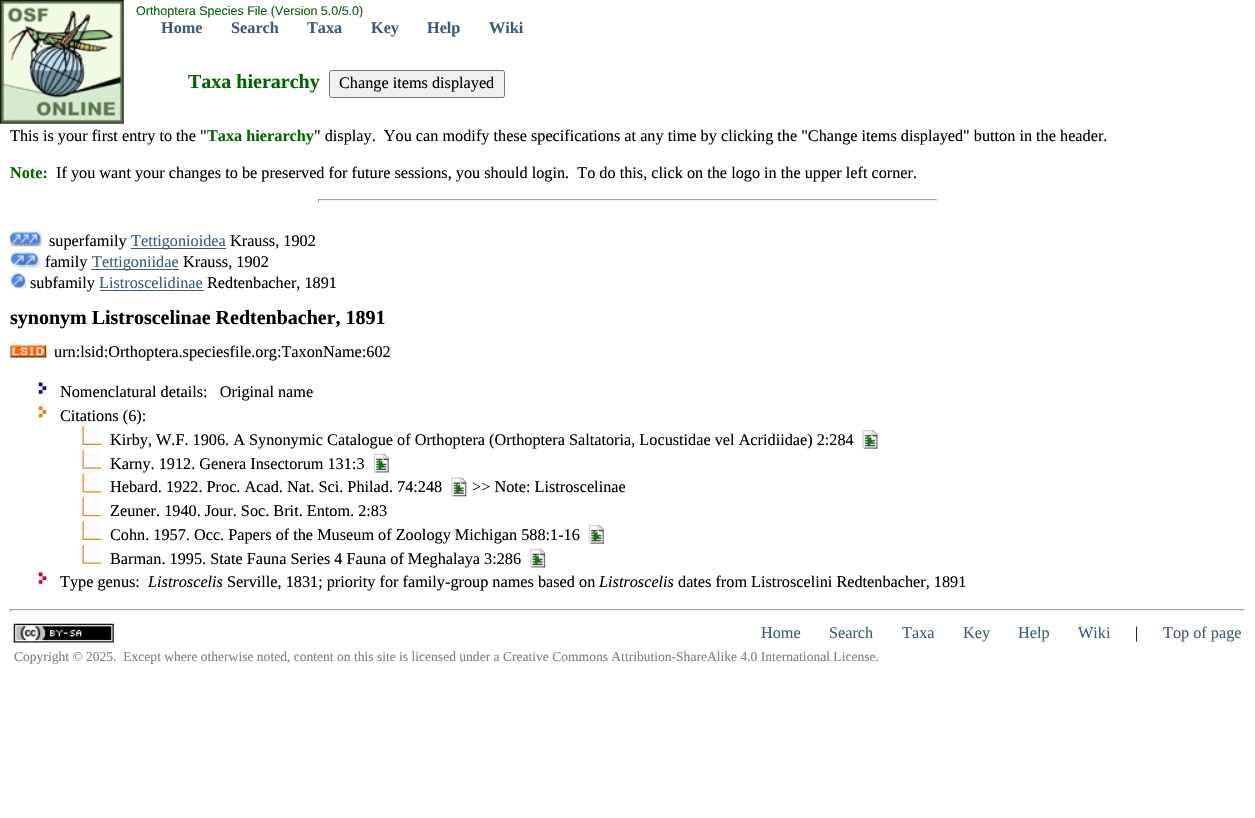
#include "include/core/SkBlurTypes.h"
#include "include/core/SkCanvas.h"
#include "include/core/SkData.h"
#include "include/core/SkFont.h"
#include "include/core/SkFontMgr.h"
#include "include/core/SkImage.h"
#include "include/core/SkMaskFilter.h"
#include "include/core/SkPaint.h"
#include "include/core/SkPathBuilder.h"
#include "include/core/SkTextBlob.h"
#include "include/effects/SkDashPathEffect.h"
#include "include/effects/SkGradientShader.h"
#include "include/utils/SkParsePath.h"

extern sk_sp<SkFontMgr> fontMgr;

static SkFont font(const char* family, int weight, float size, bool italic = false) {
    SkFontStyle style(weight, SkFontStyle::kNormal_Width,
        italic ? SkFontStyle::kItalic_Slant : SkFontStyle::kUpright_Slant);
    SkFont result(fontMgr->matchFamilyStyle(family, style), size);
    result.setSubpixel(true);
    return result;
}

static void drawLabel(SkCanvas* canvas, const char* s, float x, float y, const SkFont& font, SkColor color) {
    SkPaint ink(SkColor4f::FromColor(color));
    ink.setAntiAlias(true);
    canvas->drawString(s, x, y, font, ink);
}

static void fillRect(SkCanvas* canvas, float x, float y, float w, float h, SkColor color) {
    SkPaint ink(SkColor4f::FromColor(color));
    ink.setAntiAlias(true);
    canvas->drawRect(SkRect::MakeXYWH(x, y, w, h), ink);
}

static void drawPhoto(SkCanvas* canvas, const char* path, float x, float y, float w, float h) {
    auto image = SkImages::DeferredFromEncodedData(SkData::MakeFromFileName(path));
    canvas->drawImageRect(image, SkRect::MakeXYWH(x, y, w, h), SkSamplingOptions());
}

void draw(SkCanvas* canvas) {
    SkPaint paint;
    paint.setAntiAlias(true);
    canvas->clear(0xFFFFFFFF);
    drawPhoto(canvas, "assets/img1.png", 0, 0, 124, 124);
    SkFont font1 = font("Liberation Sans", 400, 12.5f);
    drawLabel(canvas, "Orthoptera Species File (Version 5.0/5.0)", 136, 15, font1, 0xFF006600);
    SkFont font2 = font("Liberation Serif", 700, 16.25f);
    drawLabel(canvas, "Home", 161, 33, font2, 0xFF3D5B7B);
    drawLabel(canvas, "Search", 231, 33, font2, 0xFF3D5B7B);
    drawLabel(canvas, "Taxa", 307, 33, font2, 0xFF3D5B7B);
    drawLabel(canvas, "Key", 371, 33, font2, 0xFF3D5B7B);
    drawLabel(canvas, "Help", 427, 33, font2, 0xFF3D5B7B);
    drawLabel(canvas, "Wiki", 489, 33, font2, 0xFF3D5B7B);
    SkFont font3 = font("Liberation Serif", 700, 20);
    drawLabel(canvas, "Taxa hierarchy", 188, 88, font3, 0xFF006600);
    paint.setColor(0xFFEFEFEF);
    canvas->drawRoundRect(SkRect::MakeXYWH(329.5f, 70.5f, 175, 27), 2, 2, paint);
    paint.setStroke(true);
    paint.setStrokeWidth(1);
    paint.setColor(0xFF767676);
    canvas->drawRoundRect(SkRect::MakeXYWH(329.5f, 70.5f, 175, 27), 2, 2, paint);
    SkFont font4 = font("Liberation Serif", 400, 16.25f);
    drawLabel(canvas, "Change items displayed", 339, 88, font4, 0xFF000000);
    drawLabel(canvas, "This is your first entry to the \"", 10, 141, font4, 0xFF000000);
    drawLabel(canvas, "Taxa hierarchy", 207, 141, font2, 0xFF006600);
    drawLabel(canvas, "\" display.  You can modify these specifications at any time by clicking the \"Change items displayed\" button in the header.", 314, 141, font4, 0xFF000000);
    drawLabel(canvas, "Note:", 10, 178, font2, 0xFF006600);
    drawLabel(canvas, "If you want your changes to be preserved for future sessions, you should login.  To do this, click on the logo in the upper left corner.", 56, 178, font4, 0xFF000000);
    fillRect(canvas, 318, 199, 620, 1, 0xFF9F9F9F);
    fillRect(canvas, 936, 199, 1, 3, 0xFFEEEEEE);
    fillRect(canvas, 318, 200, 620, 1, 0xFFEEEEEE);
    fillRect(canvas, 318, 199, 1, 3, 0xFF9F9F9F);
    drawPhoto(canvas, "assets/img2.png", 10, 231, 32, 16);
    drawLabel(canvas, "superfamily", 49, 246, font4, 0xFF000000);
    fillRect(canvas, 131, 248, 95, 1, 0xFF3D5B7B);
    drawLabel(canvas, "Tettigonioidea", 131, 246, font4, 0xFF3D5B7B);
    drawLabel(canvas, "Krauss, 1902", 230, 246, font4, 0xFF000000);
    drawPhoto(canvas, "assets/img3.png", 10, 252, 31, 16);
    drawLabel(canvas, "family", 45, 267, font4, 0xFF000000);
    fillRect(canvas, 91, 269, 88, 1, 0xFF3D5B7B);
    drawLabel(canvas, "Tettigoniidae", 92, 267, font4, 0xFF3D5B7B);
    drawLabel(canvas, "Krauss, 1902", 183, 267, font4, 0xFF000000);
    drawPhoto(canvas, "assets/img4.png", 11, 273, 16, 16);
    drawLabel(canvas, "subfamily", 30, 288, font4, 0xFF000000);
    drawLabel(canvas, "Listroscelidinae", 99, 288, font4, 0xFF3D5B7B);
    fillRect(canvas, 100, 290, 104, 1, 0xFF3D5B7B);
    drawLabel(canvas, "Redtenbacher, 1891", 207, 288, font4, 0xFF000000);
    drawLabel(canvas, "synonym Listroscelinae Redtenbacher, 1891", 10, 324, font3, 0xFF000000);
    drawPhoto(canvas, "assets/img5.png", 10, 345, 37, 13);
    drawLabel(canvas, "urn:lsid:Orthoptera.speciesfile.org:TaxonName:602", 54, 357, font4, 0xFF000000);
    drawPhoto(canvas, "assets/img6.png", 38, 382, 9, 12);
    drawLabel(canvas, "Nomenclatural details:   Original name", 60, 397, font4, 0xFF000000);
    drawPhoto(canvas, "assets/img7.png", 38, 406, 9, 12);
    drawLabel(canvas, "Citations (6):", 60, 421, font4, 0xFF000000);
    drawPhoto(canvas, "assets/img8.png", 82, 426, 20, 19);
    drawLabel(canvas, "Kirby, W.F. 1906. A Synonymic Catalogue of Orthoptera (Orthoptera Saltatoria, Locustidae vel Acridiidae) 2:284", 110, 445, font4, 0xFF000000);
    drawPhoto(canvas, "assets/img9.png", 862, 429, 16, 20);
    drawPhoto(canvas, "assets/img10.png", 82, 450, 20, 19);
    drawLabel(canvas, "Karny. 1912. Genera Insectorum 131:3", 110, 469, font4, 0xFF000000);
    drawPhoto(canvas, "assets/img11.png", 373, 453, 16, 20);
    drawPhoto(canvas, "assets/img12.png", 82, 473, 20, 20);
    drawLabel(canvas, "Hebard. 1922. Proc. Acad. Nat. Sci. Philad. 74:248", 110, 492, font4, 0xFF000000);
    drawPhoto(canvas, "assets/img13.png", 451, 477, 16, 20);
    drawLabel(canvas, ">> Note: Listroscelinae", 472, 492, font4, 0xFF000000);
    drawPhoto(canvas, "assets/img14.png", 82, 497, 20, 20);
    drawLabel(canvas, "Zeuner. 1940. Jour. Soc. Brit. Entom. 2:83", 110, 516, font4, 0xFF000000);
    drawPhoto(canvas, "assets/img8.png", 82, 521, 20, 19);
    drawLabel(canvas, "Cohn. 1957. Occ. Papers of the Museum of Zoology Michigan 588:1-16", 110, 540, font4, 0xFF000000);
    drawPhoto(canvas, "assets/img15.png", 588, 524, 16, 20);
    drawPhoto(canvas, "assets/img10.png", 82, 545, 20, 19);
    drawLabel(canvas, "Barman. 1995. State Fauna Series 4 Fauna of Meghalaya 3:286", 110, 564, font4, 0xFF000000);
    drawPhoto(canvas, "assets/img16.png", 530, 548, 16, 20);
    drawPhoto(canvas, "assets/img17.png", 38, 572, 9, 12);
    drawLabel(canvas, "Type genus:", 60, 587, font4, 0xFF000000);
    SkFont font5 = font("Liberation Serif", 400, 16.25f, true);
    drawLabel(canvas, "Listroscelis", 148, 587, font5, 0xFF000000);
    drawLabel(canvas, "Serville, 1831; priority for family-group names based on", 227, 587, font4, 0xFF000000);
    drawLabel(canvas, "Listroscelis", 599, 587, font5, 0xFF000000);
    drawLabel(canvas, "dates from Listroscelini Redtenbacher, 1891", 678, 587, font4, 0xFF000000);
    fillRect(canvas, 10, 609, 1235, 1, 0xFF9F9F9F);
    fillRect(canvas, 1244, 609, 1, 3, 0xFFEEEEEE);
    fillRect(canvas, 10, 610, 1235, 1, 0xFFEEEEEE);
    fillRect(canvas, 10, 609, 1, 3, 0xFF9F9F9F);
    drawPhoto(canvas, "assets/img18.png", 13, 623, 101, 20);
    drawLabel(canvas, "Home", 761, 638, font4, 0xFF3D5B7B);
    drawLabel(canvas, "Search", 829, 638, font4, 0xFF3D5B7B);
    drawLabel(canvas, "Taxa", 902, 638, font4, 0xFF3D5B7B);
    drawLabel(canvas, "Key", 963, 638, font4, 0xFF3D5B7B);
    drawLabel(canvas, "Help", 1018, 638, font4, 0xFF3D5B7B);
    drawLabel(canvas, "Wiki", 1078, 638, font4, 0xFF3D5B7B);
    drawLabel(canvas, "|", 1135, 638, font4, 0xFF000000);
    drawLabel(canvas, "Top of page", 1163, 638, font4, 0xFF3D5B7B);
    SkFont font6 = font("Liberation Serif", 400, 13.55f);
    drawLabel(canvas, "Copyright © 2025.  Except where otherwise noted, content on this site is licensed under a Creative Commons Attribution-ShareAlike 4.0 International License.", 14, 661, font6, 0xFF808080);
}
